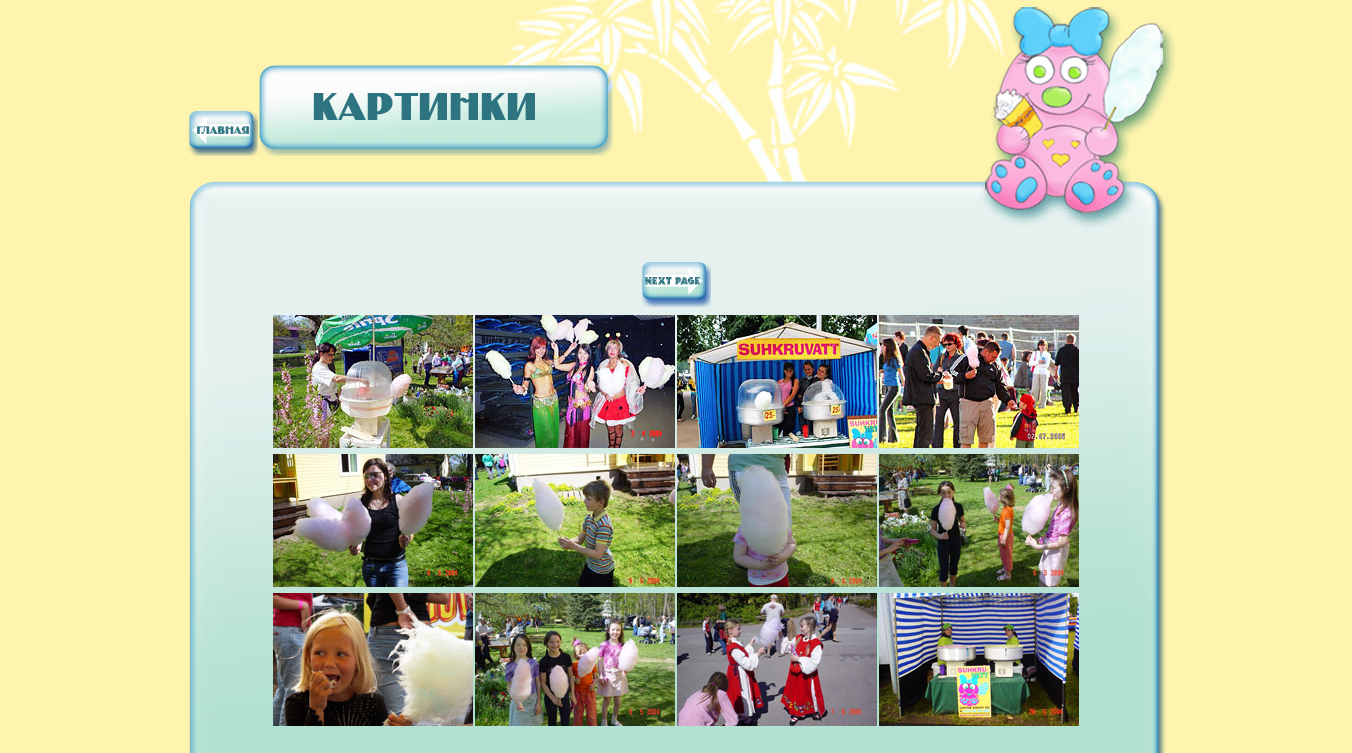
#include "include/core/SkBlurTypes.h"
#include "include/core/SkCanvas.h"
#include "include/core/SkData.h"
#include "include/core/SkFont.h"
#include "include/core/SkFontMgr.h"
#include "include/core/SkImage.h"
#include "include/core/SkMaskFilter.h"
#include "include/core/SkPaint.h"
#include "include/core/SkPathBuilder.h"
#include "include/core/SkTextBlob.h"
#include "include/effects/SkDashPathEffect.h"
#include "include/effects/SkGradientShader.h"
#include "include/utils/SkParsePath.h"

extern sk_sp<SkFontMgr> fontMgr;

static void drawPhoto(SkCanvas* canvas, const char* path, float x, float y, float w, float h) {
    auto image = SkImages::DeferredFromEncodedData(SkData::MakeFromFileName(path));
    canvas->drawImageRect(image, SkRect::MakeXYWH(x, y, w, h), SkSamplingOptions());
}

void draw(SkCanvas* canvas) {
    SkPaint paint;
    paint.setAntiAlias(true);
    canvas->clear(0xFFFEF4AE);
    drawPhoto(canvas, "assets/img1.png", 188, 0, 987, 224);
    drawPhoto(canvas, "assets/img2.png", 188, 111, 70, 45);
    drawPhoto(canvas, "assets/img3.png", 259, 65, 354, 91);
    drawPhoto(canvas, "assets/img4.png", 189, 224, 977, 529);
    drawPhoto(canvas, "assets/img5.png", 641, 262, 70, 45);
    drawPhoto(canvas, "assets/img6.png", 273, 315, 200, 133);
    drawPhoto(canvas, "assets/img7.png", 475, 315, 200, 133);
    drawPhoto(canvas, "assets/img8.png", 677, 315, 200, 133);
    drawPhoto(canvas, "assets/img9.png", 879, 315, 200, 133);
    drawPhoto(canvas, "assets/img10.png", 273, 454, 200, 133);
    drawPhoto(canvas, "assets/img11.png", 475, 454, 200, 133);
    drawPhoto(canvas, "assets/img12.png", 677, 454, 200, 133);
    drawPhoto(canvas, "assets/img13.png", 879, 454, 200, 133);
    drawPhoto(canvas, "assets/img14.png", 273, 593, 200, 133);
    drawPhoto(canvas, "assets/img15.png", 475, 593, 200, 133);
    drawPhoto(canvas, "assets/img16.png", 677, 593, 200, 133);
    drawPhoto(canvas, "assets/img17.png", 879, 593, 200, 133);
}
